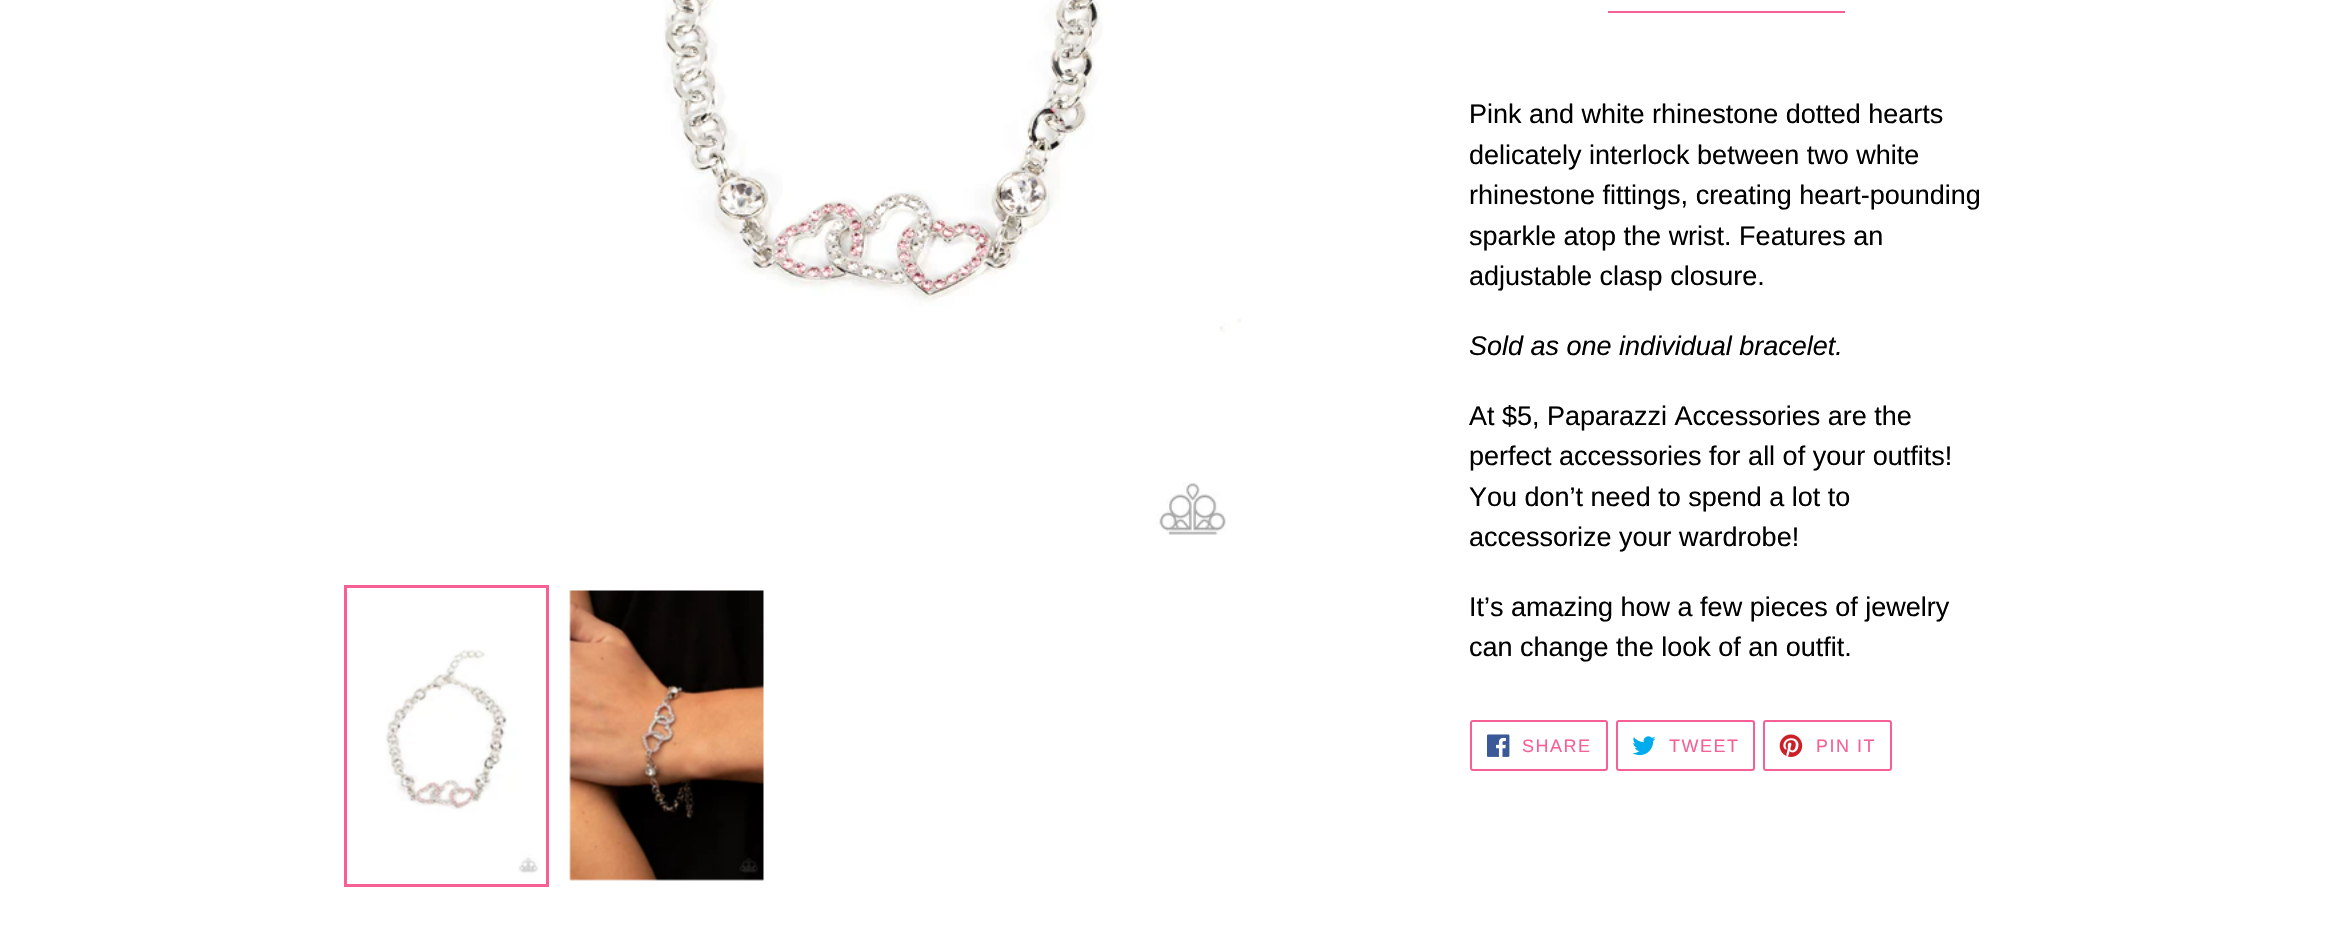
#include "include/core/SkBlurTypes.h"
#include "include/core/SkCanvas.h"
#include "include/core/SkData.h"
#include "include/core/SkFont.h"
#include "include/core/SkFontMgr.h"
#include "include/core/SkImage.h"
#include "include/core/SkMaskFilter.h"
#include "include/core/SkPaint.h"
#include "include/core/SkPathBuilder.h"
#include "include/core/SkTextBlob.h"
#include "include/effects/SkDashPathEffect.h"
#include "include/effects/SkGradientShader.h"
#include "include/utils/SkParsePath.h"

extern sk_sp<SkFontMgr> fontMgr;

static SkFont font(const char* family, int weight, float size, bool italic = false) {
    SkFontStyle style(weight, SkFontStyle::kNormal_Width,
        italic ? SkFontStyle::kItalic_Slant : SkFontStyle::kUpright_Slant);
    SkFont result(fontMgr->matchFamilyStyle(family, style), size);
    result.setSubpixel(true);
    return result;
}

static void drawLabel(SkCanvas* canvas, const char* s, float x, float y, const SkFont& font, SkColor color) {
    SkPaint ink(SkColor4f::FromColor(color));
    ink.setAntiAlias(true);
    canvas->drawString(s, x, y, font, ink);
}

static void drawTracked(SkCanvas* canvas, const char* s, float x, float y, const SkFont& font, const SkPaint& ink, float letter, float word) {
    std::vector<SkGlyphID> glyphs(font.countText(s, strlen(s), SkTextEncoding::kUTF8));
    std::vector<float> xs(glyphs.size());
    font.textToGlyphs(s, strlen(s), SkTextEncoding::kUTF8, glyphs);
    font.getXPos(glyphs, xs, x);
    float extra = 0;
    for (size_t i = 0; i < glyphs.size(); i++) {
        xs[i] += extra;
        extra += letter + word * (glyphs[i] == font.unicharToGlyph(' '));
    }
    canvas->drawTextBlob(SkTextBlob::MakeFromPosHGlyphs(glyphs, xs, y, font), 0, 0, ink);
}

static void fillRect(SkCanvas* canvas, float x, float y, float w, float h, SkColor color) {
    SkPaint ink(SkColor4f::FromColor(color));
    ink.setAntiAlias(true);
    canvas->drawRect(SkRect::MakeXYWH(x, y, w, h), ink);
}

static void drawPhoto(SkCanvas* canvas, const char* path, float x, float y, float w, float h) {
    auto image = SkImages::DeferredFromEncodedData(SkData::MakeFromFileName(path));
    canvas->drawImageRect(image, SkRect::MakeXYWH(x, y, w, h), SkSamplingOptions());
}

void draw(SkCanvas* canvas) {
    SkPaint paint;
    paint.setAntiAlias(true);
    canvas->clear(0xFFFFFFFF);
    drawPhoto(canvas, "assets/img1.png", 663, 0, 579, 535);
    paint.setStroke(true);
    paint.setStrokeWidth(3);
    paint.setColor(0xFFF66095);
    canvas->drawRect(SkRect::MakeXYWH(345.5f, 586.5f, 202, 299), paint);
    drawPhoto(canvas, "assets/img2.png", 385, 649, 154, 224);
    drawPhoto(canvas, "assets/img3.png", 569, 590, 195, 291);
    fillRect(canvas, 1608, 11, 237, 2, 0xFFF66095);
    SkFont font1 = font("Liberation Sans", 400, 27);
    drawLabel(canvas, "Pink and white rhinestone dotted hearts", 1469, 123, font1, 0xFF000000);
    drawLabel(canvas, "delicately interlock between two white", 1469, 164, font1, 0xFF000000);
    drawLabel(canvas, "rhinestone fittings, creating heart-pounding", 1469, 204, font1, 0xFF000000);
    drawLabel(canvas, "sparkle atop the wrist. Features an", 1469, 245, font1, 0xFF000000);
    drawLabel(canvas, "adjustable clasp closure.", 1469, 285, font1, 0xFF000000);
    SkFont font2 = font("Liberation Sans", 400, 27, true);
    drawLabel(canvas, "Sold as one individual bracelet.", 1469, 355, font2, 0xFF000000);
    drawLabel(canvas, "At $5, Paparazzi Accessories are the", 1469, 425, font1, 0xFF000000);
    drawLabel(canvas, "perfect accessories for all of your outfits!", 1469, 465, font1, 0xFF000000);
    drawLabel(canvas, "You don’t need to spend a lot to", 1469, 506, font1, 0xFF000000);
    drawLabel(canvas, "accessorize your wardrobe!", 1469, 546, font1, 0xFF000000);
    drawLabel(canvas, "It’s amazing how a few pieces of jewelry", 1469, 616, font1, 0xFF000000);
    drawLabel(canvas, "can change the look of an outfit.", 1469, 656, font1, 0xFF000000);
    paint.setStrokeWidth(2);
    canvas->drawRoundRect(SkRect::MakeXYWH(1471, 721, 136, 49), 2, 2, paint);
    drawPhoto(canvas, "assets/img4.png", 1487, 734, 23, 23);
    SkFont font3 = font("Liberation Sans", 400, 18);
    paint.setStroke(false);
    drawTracked(canvas, "SHARE", 1522, 752, font3, paint, 1.5f, 0);
    paint.setStroke(true);
    canvas->drawRoundRect(SkRect::MakeXYWH(1617, 721, 137, 49), 2, 2, paint);
    drawPhoto(canvas, "assets/img5.png", 1632, 736, 24, 20);
    paint.setStroke(false);
    drawTracked(canvas, "TWEET", 1669, 752, font3, paint, 1.5f, 0);
    paint.setStroke(true);
    canvas->drawRoundRect(SkRect::MakeXYWH(1764, 721, 127, 49), 2, 2, paint);
    drawPhoto(canvas, "assets/img6.png", 1779, 734, 24, 23);
    paint.setStroke(false);
    drawTracked(canvas, "PIN IT", 1816, 752, font3, paint, 1.5f, 0);
}
